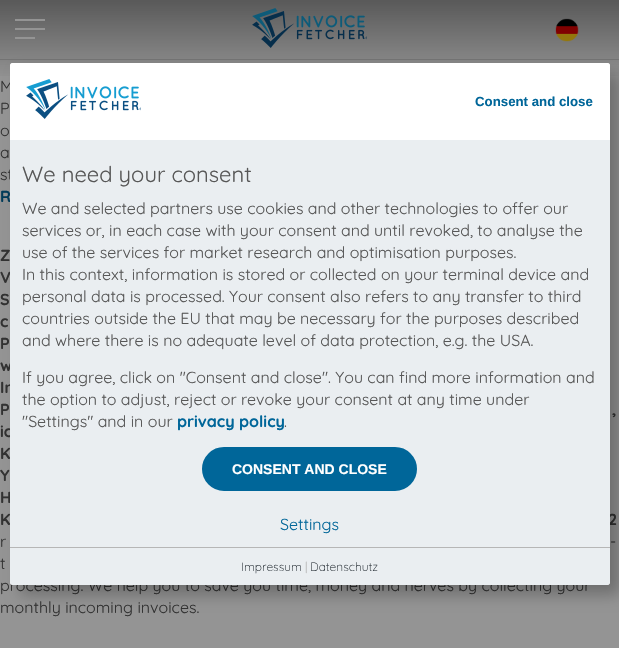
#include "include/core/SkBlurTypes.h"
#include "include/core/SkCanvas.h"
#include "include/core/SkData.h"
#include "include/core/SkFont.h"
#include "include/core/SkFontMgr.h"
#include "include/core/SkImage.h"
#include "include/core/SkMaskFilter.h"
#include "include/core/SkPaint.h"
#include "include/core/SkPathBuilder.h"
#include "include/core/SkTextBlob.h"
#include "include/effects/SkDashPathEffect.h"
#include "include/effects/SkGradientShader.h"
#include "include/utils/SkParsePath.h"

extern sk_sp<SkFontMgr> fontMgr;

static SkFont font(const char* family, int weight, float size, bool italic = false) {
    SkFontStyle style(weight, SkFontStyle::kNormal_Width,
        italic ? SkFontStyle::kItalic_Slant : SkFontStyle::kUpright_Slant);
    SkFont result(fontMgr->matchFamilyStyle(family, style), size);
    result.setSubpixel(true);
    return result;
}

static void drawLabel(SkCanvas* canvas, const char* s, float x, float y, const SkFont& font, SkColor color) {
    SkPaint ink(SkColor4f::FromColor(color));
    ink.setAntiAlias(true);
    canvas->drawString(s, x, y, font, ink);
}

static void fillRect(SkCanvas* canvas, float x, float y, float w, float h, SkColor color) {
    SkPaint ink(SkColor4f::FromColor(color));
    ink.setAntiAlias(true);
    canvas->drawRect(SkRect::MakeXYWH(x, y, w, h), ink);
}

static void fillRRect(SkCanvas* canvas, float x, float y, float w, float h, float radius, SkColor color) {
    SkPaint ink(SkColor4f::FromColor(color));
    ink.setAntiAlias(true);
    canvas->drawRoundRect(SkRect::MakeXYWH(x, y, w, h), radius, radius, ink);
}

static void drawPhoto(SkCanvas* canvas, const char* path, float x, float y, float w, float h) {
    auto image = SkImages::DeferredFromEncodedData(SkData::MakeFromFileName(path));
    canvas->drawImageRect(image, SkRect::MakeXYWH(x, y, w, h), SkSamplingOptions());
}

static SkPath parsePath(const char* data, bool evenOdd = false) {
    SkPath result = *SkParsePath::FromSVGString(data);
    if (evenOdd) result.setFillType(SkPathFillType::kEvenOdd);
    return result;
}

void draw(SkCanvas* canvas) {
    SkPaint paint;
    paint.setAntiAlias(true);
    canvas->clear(0xFF949494);
    fillRect(canvas, 0, 59, 619, 1, 0xFF808080);
    {
        const SkColor colors[] = {0x66000000, 0x00000000};
        const float stops[] = {0, 1};
        const SkPoint ends[] = {{310, 0}, {310, 80}};
        paint.setShader(SkGradientShader::MakeLinear(ends, colors, stops, 2, SkTileMode::kClamp));
        paint.setAlpha(255);
    }
    canvas->drawRect(SkRect::MakeXYWH(0, 0, 619, 76), paint);
    fillRect(canvas, 15, 28, 30, 2, 0xFF949494);
    fillRect(canvas, 15, 19, 30, 2, 0xFF949494);
    fillRect(canvas, 15, 37, 20, 2, 0xFF949494);
    drawPhoto(canvas, "assets/img1.png", 252, 8, 115, 40);
    drawPhoto(canvas, "assets/img2.png", 555, 18, 24, 24);
    SkFont font1 = font("Quicksand", 400, 16);
    drawLabel(canvas, "M", 0, 92, font1, 0xFF323232);
    drawLabel(canvas, "P", 0, 114, font1, 0xFF323232);
    drawLabel(canvas, "o", 0, 136, font1, 0xFF323232);
    drawLabel(canvas, "a", 0, 158, font1, 0xFF323232);
    drawLabel(canvas, "st", 0, 180, font1, 0xFF323232);
    SkFont font2 = font("Quicksand", 700, 16);
    drawLabel(canvas, "R", 0, 202, font2, 0xFF003B59);
    drawLabel(canvas, "Z", 0, 261, font2, 0xFF323232);
    drawLabel(canvas, "V", 0, 283, font2, 0xFF323232);
    drawLabel(canvas, "S", 0, 305, font2, 0xFF323232);
    drawLabel(canvas, "c", 0, 327, font2, 0xFF323232);
    drawLabel(canvas, "P", 0, 349, font2, 0xFF323232);
    drawLabel(canvas, "w", 0, 371, font2, 0xFF323232);
    drawLabel(canvas, "In", 0, 393, font2, 0xFF323232);
    drawLabel(canvas, "P", 0, 415, font2, 0xFF323232);
    drawLabel(canvas, ",", 612, 415, font2, 0xFF323232);
    drawLabel(canvas, "ic", 0, 437, font2, 0xFF323232);
    drawLabel(canvas, "K", 0, 459, font2, 0xFF323232);
    drawLabel(canvas, "Y", 0, 481, font2, 0xFF323232);
    drawLabel(canvas, "H", 0, 503, font2, 0xFF323232);
    drawLabel(canvas, "K", 0, 525, font2, 0xFF323232);
    drawLabel(canvas, "2", 608, 525, font2, 0xFF323232);
    drawLabel(canvas, "r", 0, 547, font1, 0xFF323232);
    drawLabel(canvas, "-", 610, 547, font1, 0xFF323232);
    drawLabel(canvas, "t", 0, 569, font1, 0xFF323232);
    drawLabel(canvas, "processing. We help you to save you time, money and nerves by collecting your", 0, 591, font1, 0xFF323232);
    drawLabel(canvas, "monthly incoming invoices.", 0, 613, font1, 0xFF323232);
    paint.setShader(nullptr);
    paint.setColor(0x40000000);
    paint.setMaskFilter(SkMaskFilter::MakeBlur(kNormal_SkBlurStyle, 7.5f));
    canvas->drawRoundRect(SkRect::MakeXYWH(20, 73, 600, 522), 3, 3, paint);
    paint.setMaskFilter(nullptr);
    fillRRect(canvas, 10, 63, 600, 522, 3, 0xFFFFFFFF);
    fillRRect(canvas, 10, 63, 600, 77, 3, 0xFFFFFFFF);
    drawPhoto(canvas, "assets/img3.png", 26, 79, 115, 40);
    SkFont font3 = font("Liberation Sans", 700, 13.25f);
    drawLabel(canvas, "Consent and close", 475, 106, font3, 0xFF006699);
    paint.setColor(0xFFEAEEF1);
    canvas->drawPath(parsePath("M10 140H610V582C610 583.5 608.5 585 607 585H13C11.5 585 10 583.5 10 582Z"), paint);
    SkFont font4 = font("Quicksand", 400, 22);
    drawLabel(canvas, "We need your consent", 22, 182, font4, 0xFF575757);
    drawLabel(canvas, "We and selected partners use cookies and other technologies to offer our", 22, 214, font1, 0xFF575757);
    drawLabel(canvas, "services or, in each case with your consent and until revoked, to analyse the", 22, 236, font1, 0xFF575757);
    drawLabel(canvas, "use of the services for market research and optimisation purposes.", 22, 258, font1, 0xFF575757);
    drawLabel(canvas, "In this context, information is stored or collected on your terminal device and", 22, 280, font1, 0xFF575757);
    drawLabel(canvas, "personal data is processed. Your consent also refers to any transfer to third", 22, 302, font1, 0xFF575757);
    drawLabel(canvas, "countries outside the EU that may be necessary for the purposes described", 22, 324, font1, 0xFF575757);
    drawLabel(canvas, "and where there is no adequate level of data protection, e.g. the USA.", 22, 346, font1, 0xFF575757);
    drawLabel(canvas, "If you agree, click on \"Consent and close\". You can find more information and", 22, 383, font1, 0xFF575757);
    drawLabel(canvas, "the option to adjust, reject or revoke your consent at any time under", 22, 405, font1, 0xFF575757);
    drawLabel(canvas, "\"Settings\" and in our", 22, 427, font1, 0xFF575757);
    drawLabel(canvas, "privacy policy", 177, 427, font2, 0xFF006699);
    drawLabel(canvas, ".", 284, 427, font1, 0xFF575757);
    paint.setColor(0xFF006699);
    canvas->drawRoundRect(SkRect::MakeXYWH(203, 448, 213, 42), 21, 21, paint);
    paint.setStroke(true);
    paint.setStrokeWidth(2);
    canvas->drawRoundRect(SkRect::MakeXYWH(203, 448, 213, 42), 21, 21, paint);
    SkFont font5 = font("Liberation Sans", 700, 14);
    drawLabel(canvas, "CONSENT AND CLOSE", 232, 474, font5, 0xFFFFFFFF);
    drawLabel(canvas, "Settings", 280, 530, font1, 0xFF006699);
    fillRect(canvas, 10, 547, 600, 1, 0xFFB6B6B6);
    SkFont font6 = font("Quicksand", 300, 12);
    drawLabel(canvas, "Impressum", 241, 571, font6, 0xFF2B333A);
    SkFont font7 = font("Quicksand", 400, 12);
    drawLabel(canvas, "|", 305, 571, font7, 0xFFB6B6B6);
    drawLabel(canvas, "Datenschutz", 310, 571, font6, 0xFF2B333A);
}
